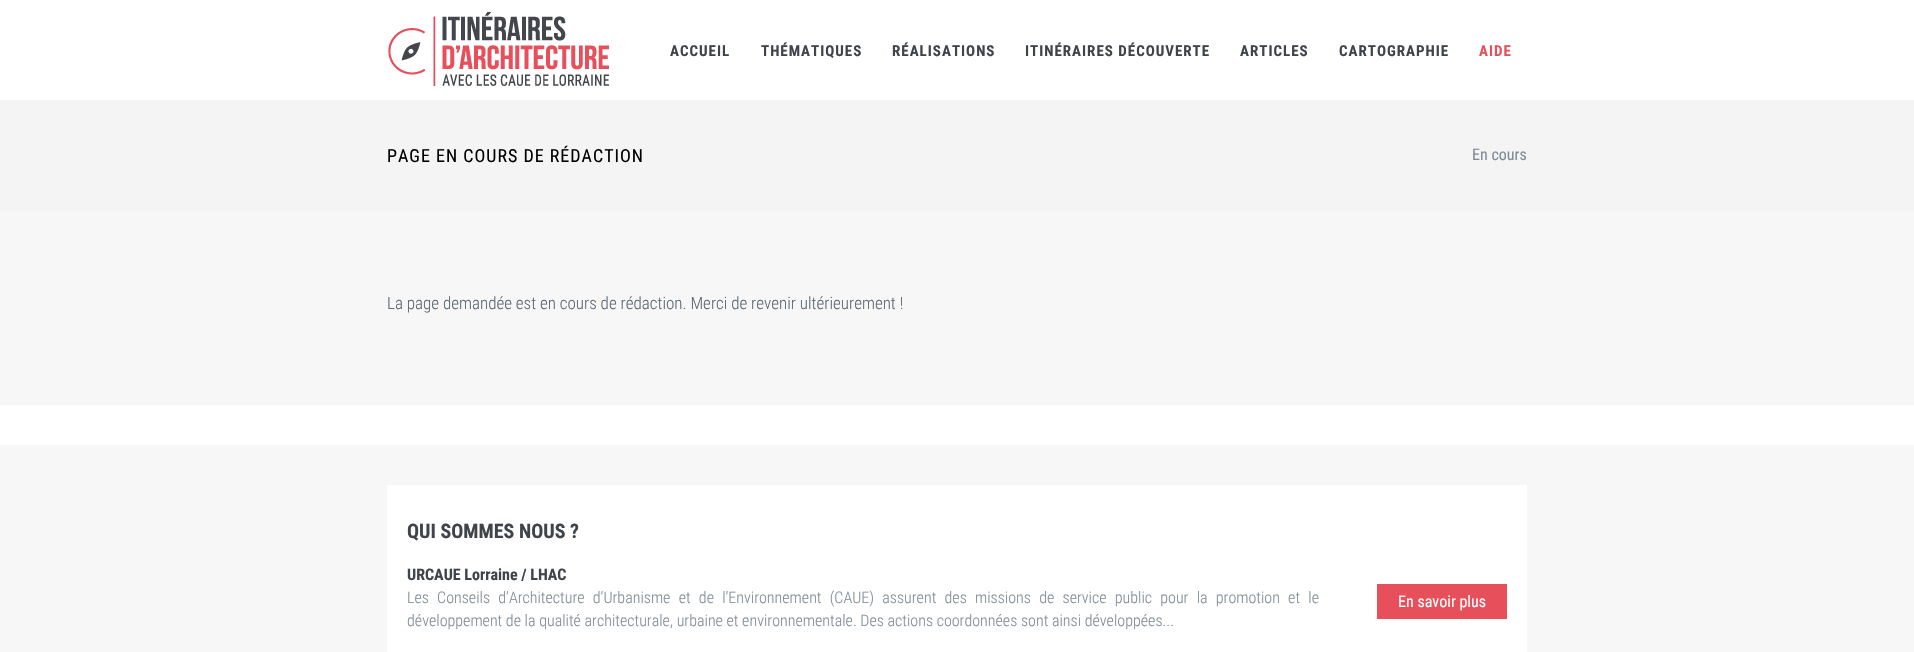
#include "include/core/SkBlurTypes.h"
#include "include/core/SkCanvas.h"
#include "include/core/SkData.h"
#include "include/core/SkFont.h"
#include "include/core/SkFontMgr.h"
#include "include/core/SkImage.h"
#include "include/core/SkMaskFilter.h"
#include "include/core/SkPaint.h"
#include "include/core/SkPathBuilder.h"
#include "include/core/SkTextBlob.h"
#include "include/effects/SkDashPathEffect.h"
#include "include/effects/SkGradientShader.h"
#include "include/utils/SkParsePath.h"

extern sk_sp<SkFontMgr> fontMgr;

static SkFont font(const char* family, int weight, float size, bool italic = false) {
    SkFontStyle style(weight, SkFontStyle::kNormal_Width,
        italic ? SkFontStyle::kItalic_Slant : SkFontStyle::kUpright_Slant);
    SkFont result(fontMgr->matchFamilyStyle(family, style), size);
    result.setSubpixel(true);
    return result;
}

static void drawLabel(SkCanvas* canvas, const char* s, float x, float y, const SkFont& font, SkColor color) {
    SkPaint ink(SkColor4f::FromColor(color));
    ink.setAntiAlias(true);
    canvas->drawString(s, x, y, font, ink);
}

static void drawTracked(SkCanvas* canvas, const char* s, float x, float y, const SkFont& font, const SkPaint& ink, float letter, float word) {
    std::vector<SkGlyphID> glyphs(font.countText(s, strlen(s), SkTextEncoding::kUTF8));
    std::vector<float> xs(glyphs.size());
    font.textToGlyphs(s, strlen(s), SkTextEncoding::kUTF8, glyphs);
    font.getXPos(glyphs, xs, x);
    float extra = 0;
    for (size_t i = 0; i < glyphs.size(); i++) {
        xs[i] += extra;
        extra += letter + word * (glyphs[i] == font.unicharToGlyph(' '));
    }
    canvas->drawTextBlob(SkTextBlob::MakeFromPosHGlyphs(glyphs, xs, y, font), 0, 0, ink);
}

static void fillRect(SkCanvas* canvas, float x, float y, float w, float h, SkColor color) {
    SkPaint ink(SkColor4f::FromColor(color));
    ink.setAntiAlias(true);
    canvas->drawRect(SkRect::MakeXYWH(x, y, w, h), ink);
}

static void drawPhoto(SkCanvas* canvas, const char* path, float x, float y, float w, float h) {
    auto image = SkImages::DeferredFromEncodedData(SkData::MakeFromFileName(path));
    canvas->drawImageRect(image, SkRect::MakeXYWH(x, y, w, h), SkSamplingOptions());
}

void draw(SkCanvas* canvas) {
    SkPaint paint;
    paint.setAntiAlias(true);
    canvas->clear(0xFFFFFFFF);
    drawPhoto(canvas, "assets/img1.png", 388, 12, 221, 74);
    SkFont font1 = font("Roboto Condensed", 700, 15);
    paint.setColor(0xFF3F444A);
    drawTracked(canvas, "ACCUEIL", 670, 56, font1, paint, 1, 0);
    drawTracked(canvas, "THÉMATIQUES", 761, 56, font1, paint, 1, 0);
    drawTracked(canvas, "RÉALISATIONS", 892, 56, font1, paint, 1, 0);
    drawTracked(canvas, "ITINÉRAIRES DÉCOUVERTE", 1025, 56, font1, paint, 1, 0);
    drawTracked(canvas, "ARTICLES", 1240, 56, font1, paint, 1, 0);
    drawTracked(canvas, "CARTOGRAPHIE", 1339, 56, font1, paint, 1, 0);
    paint.setColor(0xFFE7505B);
    drawTracked(canvas, "AIDE", 1479, 56, font1, paint, 1, 0);
    fillRect(canvas, 0, 101, 1914, 109, 0xFFF4F4F4);
    fillRect(canvas, 0, 100, 1914, 1, 0xFFF6F6F6);
    fillRect(canvas, 0, 210, 1914, 1, 0xFFF6F6F6);
    SkFont font2 = font("Roboto Condensed", 400, 18);
    paint.setColor(0xFF000000);
    drawTracked(canvas, "PAGE EN COURS DE RÉDACTION", 387, 162, font2, paint, 1, 0);
    SkFont font3 = font("Roboto Condensed", 400, 16);
    drawLabel(canvas, "En cours", 1472, 160, font3, 0xFF7F8C97);
    fillRect(canvas, 0, 211, 1914, 194, 0xFFF7F7F7);
    SkFont font4 = font("Roboto Condensed", 300, 17);
    drawLabel(canvas, "La page demandée est en cours de rédaction. Merci de revenir ultérieurement !", 387, 309, font4, 0xFF5C6873);
    fillRect(canvas, 0, 445, 1914, 207, 0xFFF7F7F7);
    fillRect(canvas, 387, 485, 1140, 167, 0xFFFFFFFF);
    SkFont font5 = font("Roboto Condensed", 700, 20);
    drawLabel(canvas, "QUI SOMMES NOUS ?", 407, 538, font5, 0xFF3F444A);
    SkFont font6 = font("Roboto Condensed", 700, 16);
    drawLabel(canvas, "URCAUE Lorraine / LHAC", 407, 580, font6, 0xFF3F444A);
    SkFont font7 = font("Roboto Condensed", 300, 16);
    paint.setColor(0xFF7F8C97);
    drawTracked(canvas, "Les Conseils d’Architecture d’Urbanisme et de l’Environnement (CAUE) assurent des missions de service public pour la promotion et le", 407, 603, font7, paint, 0, 4.6f);
    drawLabel(canvas, "développement de la qualité architecturale, urbaine et environnementale. Des actions coordonnées sont ainsi développées...", 407, 626, font7, 0xFF7F8C97);
    fillRect(canvas, 1377, 584, 130, 35, 0xFFE7505B);
    drawLabel(canvas, "En savoir plus", 1398, 607, font3, 0xFFFFFFFF);
}
